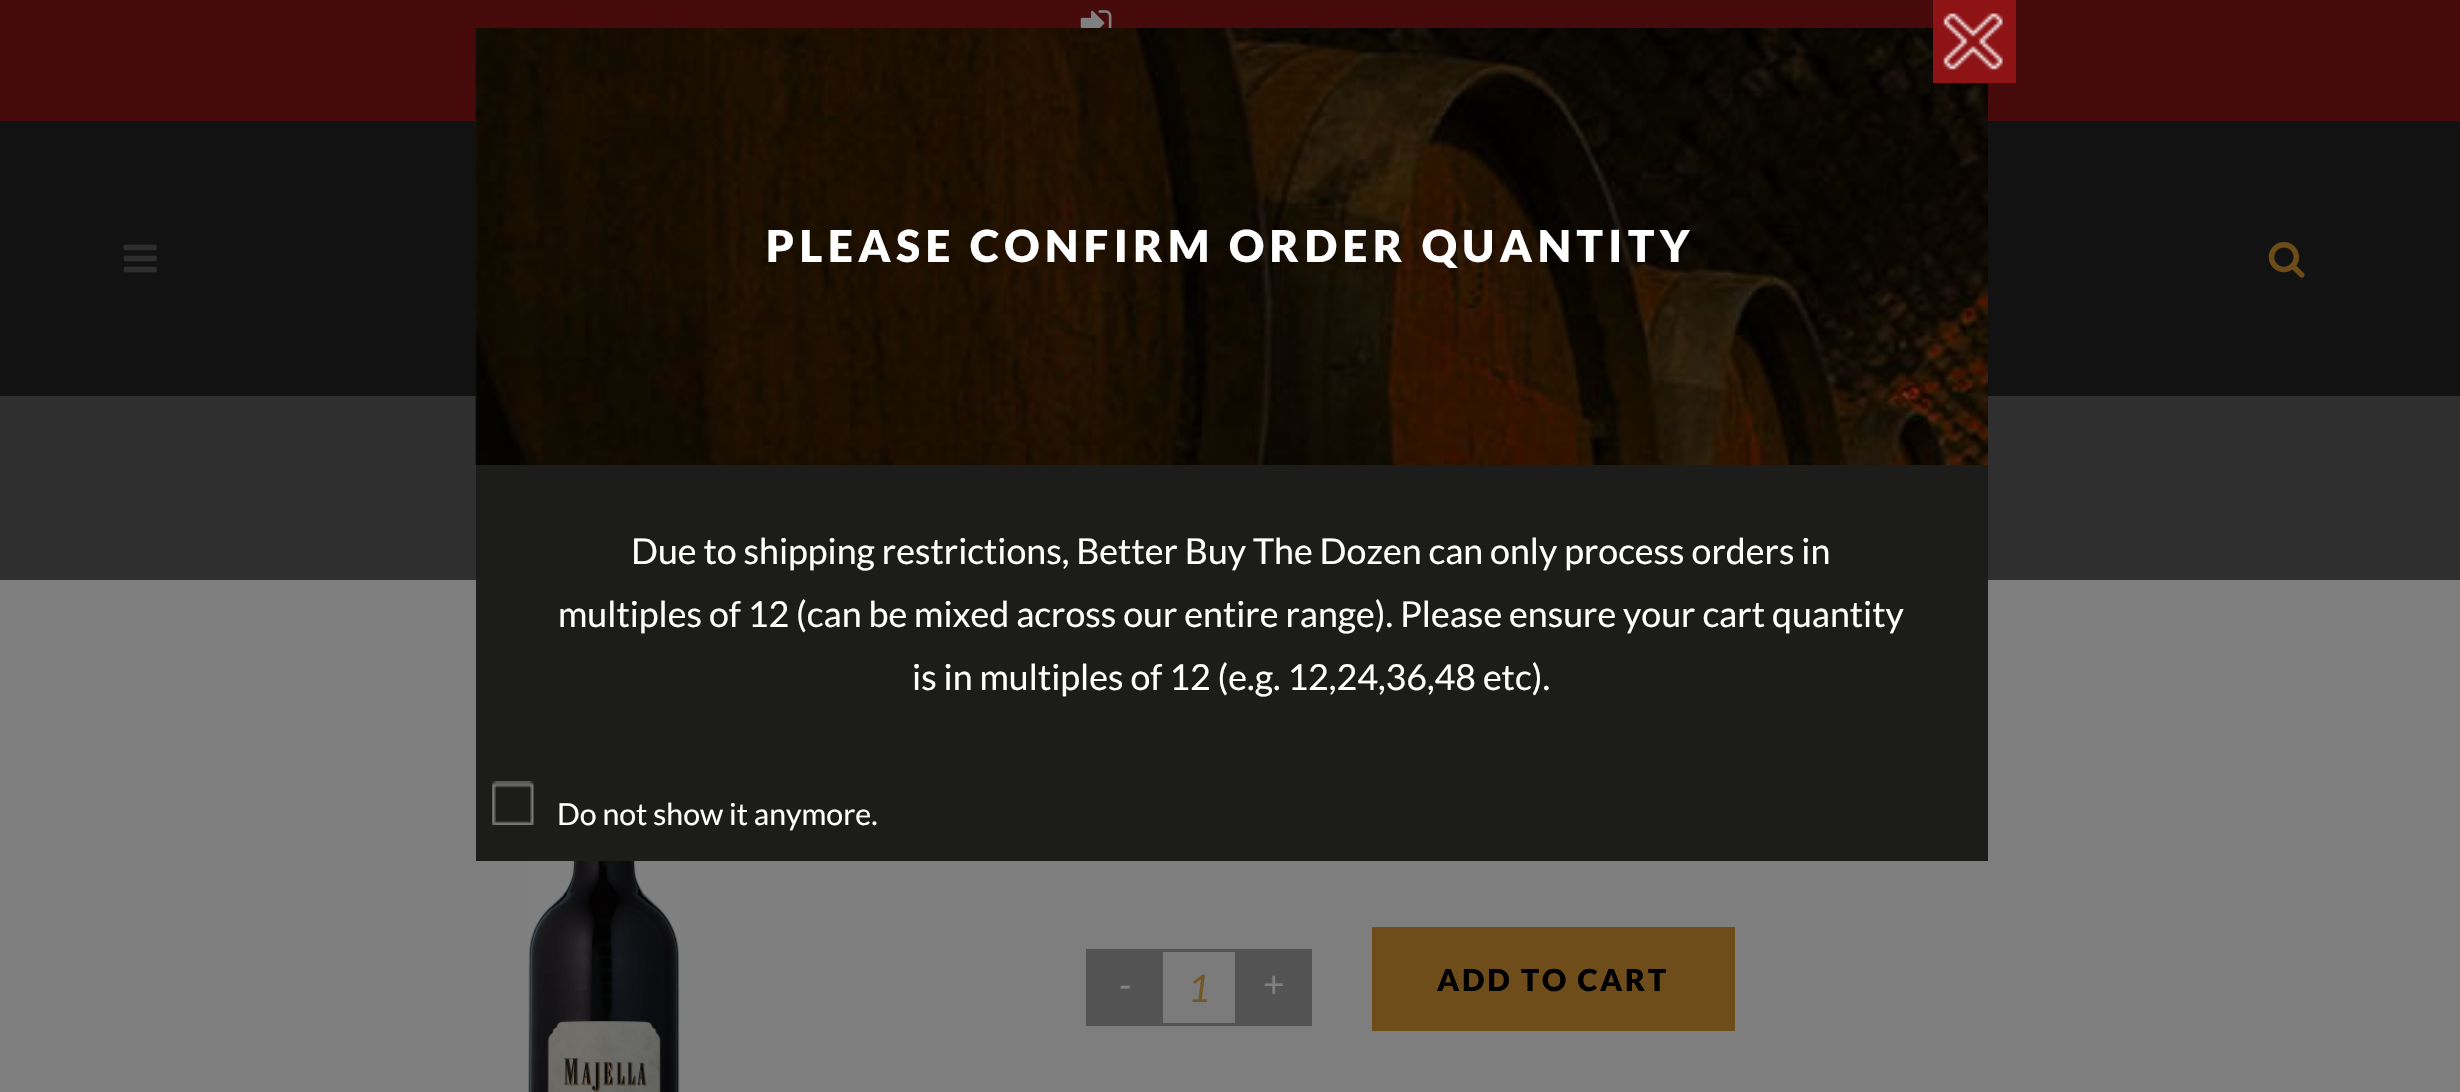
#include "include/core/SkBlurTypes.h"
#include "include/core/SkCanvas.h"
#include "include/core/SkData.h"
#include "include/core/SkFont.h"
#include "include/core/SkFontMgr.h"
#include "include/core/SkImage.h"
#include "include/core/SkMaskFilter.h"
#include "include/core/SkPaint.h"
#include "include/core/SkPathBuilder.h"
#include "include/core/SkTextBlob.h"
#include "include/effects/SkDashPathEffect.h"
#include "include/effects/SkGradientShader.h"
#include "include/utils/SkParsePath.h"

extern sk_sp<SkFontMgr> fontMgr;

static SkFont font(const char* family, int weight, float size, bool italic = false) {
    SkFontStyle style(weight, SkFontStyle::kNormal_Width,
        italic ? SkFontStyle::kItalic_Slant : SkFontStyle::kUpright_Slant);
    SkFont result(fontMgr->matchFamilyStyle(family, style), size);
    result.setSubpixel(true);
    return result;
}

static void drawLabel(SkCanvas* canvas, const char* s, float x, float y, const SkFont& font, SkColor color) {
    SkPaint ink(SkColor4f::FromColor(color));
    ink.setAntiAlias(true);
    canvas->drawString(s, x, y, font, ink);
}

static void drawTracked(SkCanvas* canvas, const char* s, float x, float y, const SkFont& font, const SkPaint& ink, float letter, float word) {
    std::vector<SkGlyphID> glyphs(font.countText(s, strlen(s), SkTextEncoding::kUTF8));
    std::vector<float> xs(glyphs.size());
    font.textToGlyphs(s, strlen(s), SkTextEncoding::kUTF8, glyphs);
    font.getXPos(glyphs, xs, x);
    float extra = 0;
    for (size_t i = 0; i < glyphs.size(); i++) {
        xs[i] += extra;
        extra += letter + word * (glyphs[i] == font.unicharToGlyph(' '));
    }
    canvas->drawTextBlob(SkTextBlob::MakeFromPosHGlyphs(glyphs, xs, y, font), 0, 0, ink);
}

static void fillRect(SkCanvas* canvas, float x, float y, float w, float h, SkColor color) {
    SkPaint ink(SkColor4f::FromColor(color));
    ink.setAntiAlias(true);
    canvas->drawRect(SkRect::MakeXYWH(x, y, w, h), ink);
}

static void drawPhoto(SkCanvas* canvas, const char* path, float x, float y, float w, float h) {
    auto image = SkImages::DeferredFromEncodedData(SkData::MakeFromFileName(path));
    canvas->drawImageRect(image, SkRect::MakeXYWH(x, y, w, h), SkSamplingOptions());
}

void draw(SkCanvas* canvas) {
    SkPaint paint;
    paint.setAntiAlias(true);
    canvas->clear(0xFF7E7E7E);
    fillRect(canvas, 0, 0, 2460, 121, 0xFF470A0B);
    fillRect(canvas, 0, 121, 2460, 275, 0xFF121212);
    fillRect(canvas, 0, 396, 2460, 184, 0xFF2F2F2F);
    fillRect(canvas, 476, 28, 1512, 833, 0xFF1C1C1B);
    drawPhoto(canvas, "assets/img2.png", 475, 28, 1513, 437);
    fillRect(canvas, 1933, 0, 83, 83, 0xFF8E1315);
    drawPhoto(canvas, "assets/img1.png", 1943, 13, 60, 57);
    SkFont font1 = font("Lato", 900, 44);
    paint.setColor(0xFFFFFFFF);
    drawTracked(canvas, "PLEASE CONFIRM ORDER QUANTITY", 766, 262, font1, paint, 5.5f, 0);
    SkFont font2 = font("Lato", 400, 35.75f);
    drawLabel(canvas, "Due to shipping restrictions, Better Buy The Dozen can only process orders in", 631, 564, font2, 0xFFFFFFFF);
    drawLabel(canvas, "multiples of 12 (can be mixed across our entire range). Please ensure your cart quantity", 558, 627, font2, 0xFFFFFFFF);
    drawLabel(canvas, "is in multiples of 12 (e.g. 12,24,36,48 etc).", 912, 690, font2, 0xFFFFFFFF);
    drawPhoto(canvas, "assets/img3.png", 492, 781, 42, 44);
    SkFont font3 = font("Lato", 400, 30.25f);
    drawLabel(canvas, "Do not show it anymore.", 557, 825, font3, 0xFFFFFFFF);
    drawPhoto(canvas, "assets/img4.png", 1080, 10, 32, 18);
    drawPhoto(canvas, "assets/img5.png", 123, 244, 34, 29);
    drawPhoto(canvas, "assets/img6.png", 2268, 242, 37, 36);
    drawPhoto(canvas, "assets/img7.png", 528, 861, 152, 231);
    fillRect(canvas, 1086, 949, 226, 77, 0xFF535353);
    SkFont font4 = font("Liberation Sans", 400, 37);
    drawLabel(canvas, "-", 1119, 997, font4, 0xFF808080);
    fillRect(canvas, 1163, 952, 72, 71, 0xFF7B7B7B);
    SkFont font5 = font("Lato", 400, 38, true);
    drawLabel(canvas, "1", 1188, 1002, font5, 0xFF735724);
    drawLabel(canvas, "+", 1263, 997, font4, 0xFF808080);
    fillRect(canvas, 1372, 927, 363, 104, 0xFF6F4D1A);
    SkFont font6 = font("Lato", 900, 30.25f);
    paint.setColor(0xFF010101);
    drawTracked(canvas, "ADD TO CART", 1437, 991, font6, paint, 2.75f, 0);
}
